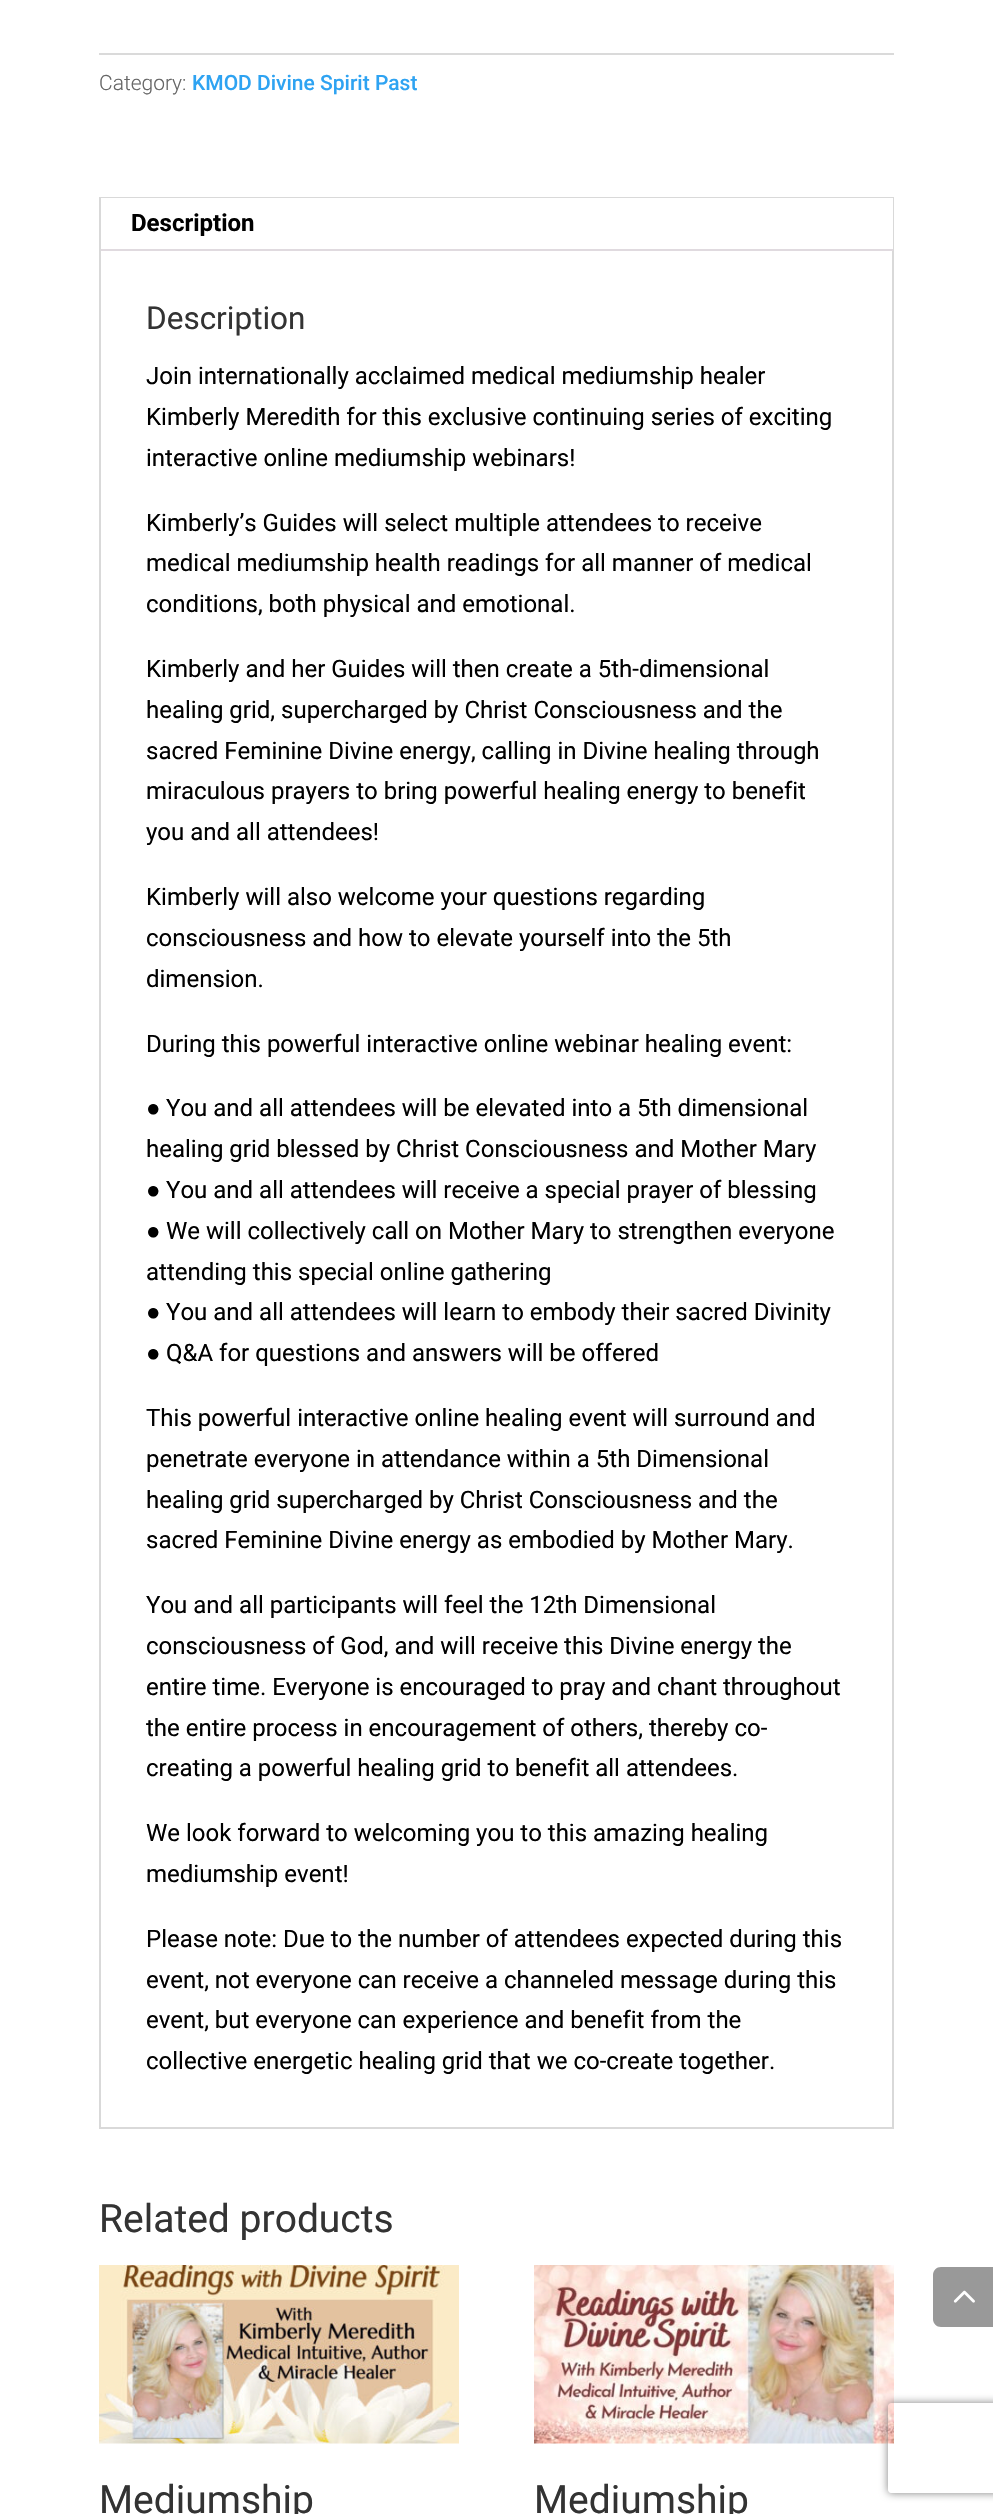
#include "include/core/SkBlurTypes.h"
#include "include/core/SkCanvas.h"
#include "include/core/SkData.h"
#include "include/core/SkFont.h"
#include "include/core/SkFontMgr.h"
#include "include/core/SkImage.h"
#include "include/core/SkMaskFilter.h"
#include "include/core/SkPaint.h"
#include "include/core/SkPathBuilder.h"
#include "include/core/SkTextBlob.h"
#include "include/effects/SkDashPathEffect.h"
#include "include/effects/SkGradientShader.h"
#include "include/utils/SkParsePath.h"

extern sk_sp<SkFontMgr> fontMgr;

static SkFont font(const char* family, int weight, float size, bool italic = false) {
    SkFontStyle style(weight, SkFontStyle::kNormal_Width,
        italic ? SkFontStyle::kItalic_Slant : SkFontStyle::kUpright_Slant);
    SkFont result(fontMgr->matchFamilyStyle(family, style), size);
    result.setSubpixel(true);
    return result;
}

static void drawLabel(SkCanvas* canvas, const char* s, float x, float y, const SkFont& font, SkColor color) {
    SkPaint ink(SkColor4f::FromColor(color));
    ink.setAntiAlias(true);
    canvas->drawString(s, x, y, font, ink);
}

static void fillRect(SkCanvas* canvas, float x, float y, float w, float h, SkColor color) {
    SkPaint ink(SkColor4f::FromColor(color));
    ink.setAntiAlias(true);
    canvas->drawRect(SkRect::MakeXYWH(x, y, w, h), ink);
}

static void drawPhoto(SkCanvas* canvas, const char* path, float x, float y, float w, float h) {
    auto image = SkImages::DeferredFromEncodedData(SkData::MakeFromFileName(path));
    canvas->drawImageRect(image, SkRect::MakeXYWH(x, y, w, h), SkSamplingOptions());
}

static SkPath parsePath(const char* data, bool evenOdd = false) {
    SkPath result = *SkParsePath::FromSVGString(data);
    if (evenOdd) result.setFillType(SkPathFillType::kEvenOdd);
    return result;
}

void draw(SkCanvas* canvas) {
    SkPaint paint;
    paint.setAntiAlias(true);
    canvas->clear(0xFFFFFFFF);
    fillRect(canvas, 99, 53, 795, 2, 0xFFDADADA);
    SkFont font1 = font("Roboto", 300, 21);
    drawLabel(canvas, "Category:", 99, 90, font1, 0xFF666666);
    SkFont font2 = font("Roboto", 500, 21);
    drawLabel(canvas, "KMOD Divine Spirit Past", 192, 90, font2, 0xFF2EA3F2);
    paint.setStroke(true);
    paint.setStrokeWidth(2);
    paint.setColor(0xFFD9D9D9);
    canvas->drawRect(SkRect::MakeXYWH(100, 198, 793, 1930), paint);
    fillRect(canvas, 101, 198, 792, 51, 0xFFFFFFFF);
    fillRect(canvas, 101, 249, 792, 2, 0xFFE0DADF);
    SkFont font3 = font("Roboto", 700, 24);
    drawLabel(canvas, "Description", 131, 231, font3, 0xFF000000);
    SkFont font4 = font("Roboto", 400, 31.5f);
    drawLabel(canvas, "Description", 146, 329, font4, 0xFF333333);
    SkFont font5 = font("Roboto", 400, 24);
    drawLabel(canvas, "Join internationally acclaimed medical mediumship healer", 146, 384, font5, 0xFF000000);
    drawLabel(canvas, "Kimberly Meredith for this exclusive continuing series of exciting", 146, 425, font5, 0xFF000000);
    drawLabel(canvas, "interactive online mediumship webinars!", 146, 466, font5, 0xFF000000);
    drawLabel(canvas, "Kimberly’s Guides will select multiple attendees to receive", 146, 531, font5, 0xFF000000);
    drawLabel(canvas, "medical mediumship health readings for all manner of medical", 146, 571, font5, 0xFF000000);
    drawLabel(canvas, "conditions, both physical and emotional.", 146, 612, font5, 0xFF000000);
    drawLabel(canvas, "Kimberly and her Guides will then create a 5th-dimensional", 146, 677, font5, 0xFF000000);
    drawLabel(canvas, "healing grid, supercharged by Christ Consciousness and the", 146, 718, font5, 0xFF000000);
    drawLabel(canvas, "sacred Feminine Divine energy, calling in Divine healing through", 146, 759, font5, 0xFF000000);
    drawLabel(canvas, "miraculous prayers to bring powerful healing energy to benefit", 146, 799, font5, 0xFF000000);
    drawLabel(canvas, "you and all attendees!", 146, 840, font5, 0xFF000000);
    drawLabel(canvas, "Kimberly will also welcome your questions regarding", 146, 905, font5, 0xFF000000);
    drawLabel(canvas, "consciousness and how to elevate yourself into the 5th", 146, 946, font5, 0xFF000000);
    drawLabel(canvas, "dimension.", 146, 987, font5, 0xFF000000);
    drawLabel(canvas, "During this powerful interactive online webinar healing event:", 146, 1052, font5, 0xFF000000);
    SkFont font6 = font("Liberation Sans", 400, 24);
    drawLabel(canvas, "●", 146, 1116, font6, 0xFF000000);
    drawLabel(canvas, "You and all attendees will be elevated into a 5th dimensional", 166, 1116, font5, 0xFF000000);
    drawLabel(canvas, "healing grid blessed by Christ Consciousness and Mother Mary", 146, 1157, font5, 0xFF000000);
    drawLabel(canvas, "●", 146, 1198, font6, 0xFF000000);
    drawLabel(canvas, "You and all attendees will receive a special prayer of blessing", 166, 1198, font5, 0xFF000000);
    drawLabel(canvas, "●", 146, 1239, font6, 0xFF000000);
    drawLabel(canvas, "We will collectively call on Mother Mary to strengthen everyone", 166, 1239, font5, 0xFF000000);
    drawLabel(canvas, "attending this special online gathering", 146, 1280, font5, 0xFF000000);
    drawLabel(canvas, "●", 146, 1320, font6, 0xFF000000);
    drawLabel(canvas, "You and all attendees will learn to embody their sacred Divinity", 166, 1320, font5, 0xFF000000);
    drawLabel(canvas, "●", 146, 1361, font6, 0xFF000000);
    drawLabel(canvas, "Q&A for questions and answers will be offered", 166, 1361, font5, 0xFF000000);
    drawLabel(canvas, "This powerful interactive online healing event will surround and", 146, 1426, font5, 0xFF000000);
    drawLabel(canvas, "penetrate everyone in attendance within a 5th Dimensional", 146, 1467, font5, 0xFF000000);
    drawLabel(canvas, "healing grid supercharged by Christ Consciousness and the", 146, 1508, font5, 0xFF000000);
    drawLabel(canvas, "sacred Feminine Divine energy as embodied by Mother Mary.", 146, 1548, font5, 0xFF000000);
    drawLabel(canvas, "You and all participants will feel the 12th Dimensional", 146, 1613, font5, 0xFF000000);
    drawLabel(canvas, "consciousness of God, and will receive this Divine energy the", 146, 1654, font5, 0xFF000000);
    drawLabel(canvas, "entire time. Everyone is encouraged to pray and chant throughout", 146, 1695, font5, 0xFF000000);
    drawLabel(canvas, "the entire process in encouragement of others, thereby co-", 146, 1736, font5, 0xFF000000);
    drawLabel(canvas, "creating a powerful healing grid to benefit all attendees.", 146, 1776, font5, 0xFF000000);
    drawLabel(canvas, "We look forward to welcoming you to this amazing healing", 146, 1841, font5, 0xFF000000);
    drawLabel(canvas, "mediumship event!", 146, 1882, font5, 0xFF000000);
    drawLabel(canvas, "Please note: Due to the number of attendees expected during this", 146, 1947, font5, 0xFF000000);
    drawLabel(canvas, "event, not everyone can receive a channeled message during this", 146, 1988, font5, 0xFF000000);
    drawLabel(canvas, "event, but everyone can experience and benefit from the", 146, 2028, font5, 0xFF000000);
    drawLabel(canvas, "collective energetic healing grid that we co-create together.", 146, 2069, font5, 0xFF000000);
    SkFont font7 = font("Roboto", 400, 39);
    drawLabel(canvas, "Related products", 99, 2232, font7, 0xFF333333);
    drawPhoto(canvas, "assets/img1.png", 99, 2265, 360, 179);
    drawLabel(canvas, "Mediumship", 99, 2513, font7, 0xFF333333);
    drawPhoto(canvas, "assets/img2.png", 534, 2265, 360, 179);
    drawLabel(canvas, "Mediumship", 534, 2513, font7, 0xFF333333);
    paint.setStroke(false);
    paint.setColor(0xFF999999);
    canvas->drawPath(parsePath("M941 2267H993V2327H941C936.5 2327 933 2323.5 933 2319V2275C933 2270.5 936.5 2267 941 2267Z"), paint);
    drawPhoto(canvas, "assets/img3.png", 953, 2290, 22, 13);
    canvas->save();
    canvas->clipPath(parsePath("M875 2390H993V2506H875ZM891 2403H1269C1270.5 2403 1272 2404.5 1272 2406V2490C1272 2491.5 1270.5 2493 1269 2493H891C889.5 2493 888 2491.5 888 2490V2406C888 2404.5 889.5 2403 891 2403Z", true), true);
    paint.setColor(0xFF808080);
    paint.setMaskFilter(SkMaskFilter::MakeBlur(kNormal_SkBlurStyle, 4));
    canvas->drawRoundRect(SkRect::MakeXYWH(888, 2403, 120, 90), 3, 3, paint);
    paint.setMaskFilter(nullptr);
    canvas->restore();
}
